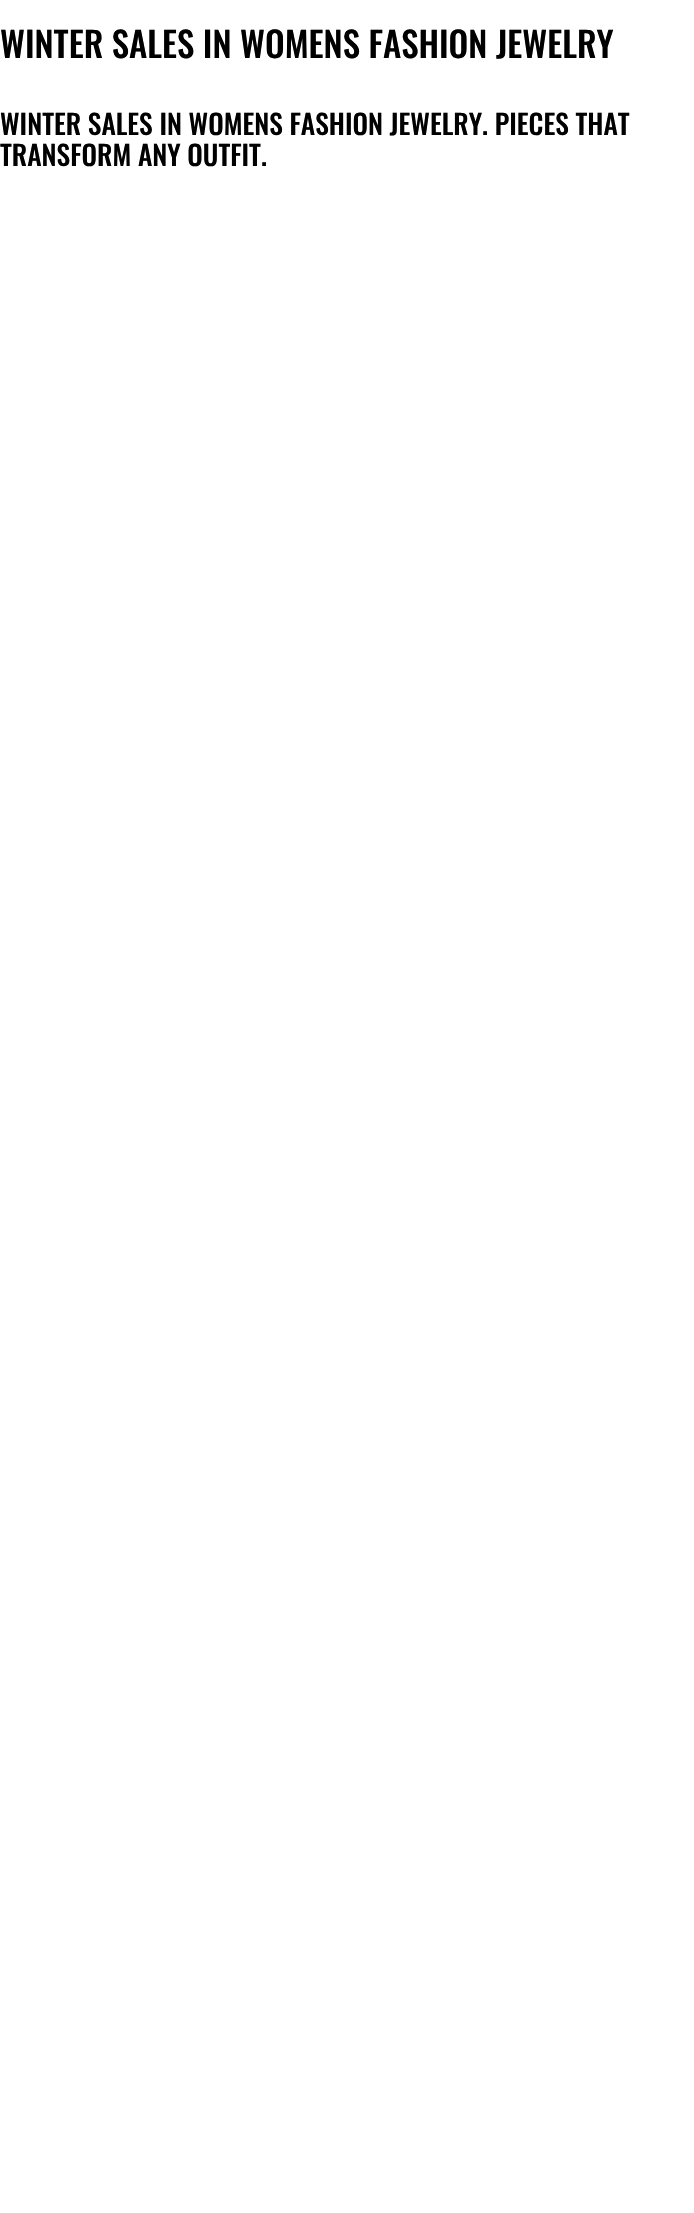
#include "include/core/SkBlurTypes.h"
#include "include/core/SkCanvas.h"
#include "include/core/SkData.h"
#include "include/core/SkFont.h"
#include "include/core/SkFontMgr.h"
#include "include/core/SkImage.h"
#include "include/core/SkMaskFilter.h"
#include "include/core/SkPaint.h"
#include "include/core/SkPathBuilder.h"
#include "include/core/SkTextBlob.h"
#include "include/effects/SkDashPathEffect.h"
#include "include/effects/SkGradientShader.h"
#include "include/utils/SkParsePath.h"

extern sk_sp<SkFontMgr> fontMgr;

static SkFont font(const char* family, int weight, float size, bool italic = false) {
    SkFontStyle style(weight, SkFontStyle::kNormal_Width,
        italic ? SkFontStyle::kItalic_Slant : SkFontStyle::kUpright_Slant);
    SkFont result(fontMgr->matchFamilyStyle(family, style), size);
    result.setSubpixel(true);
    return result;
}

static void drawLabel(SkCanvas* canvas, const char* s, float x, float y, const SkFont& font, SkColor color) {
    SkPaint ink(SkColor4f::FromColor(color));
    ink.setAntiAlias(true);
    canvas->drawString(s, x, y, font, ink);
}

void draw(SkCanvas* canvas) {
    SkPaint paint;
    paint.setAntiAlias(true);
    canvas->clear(0xFFFFFFFF);
    SkFont font1 = font("Oswald", 500, 35);
    drawLabel(canvas, "WINTER SALES IN WOMENS FASHION JEWELRY", 0, 58, font1, 0xFF000000);
    SkFont font2 = font("Oswald", 500, 27.5f);
    drawLabel(canvas, "WINTER SALES IN WOMENS FASHION JEWELRY. PIECES THAT", 0, 135, font2, 0xFF000000);
    drawLabel(canvas, "TRANSFORM ANY OUTFIT.", 0, 166, font2, 0xFF000000);
}
